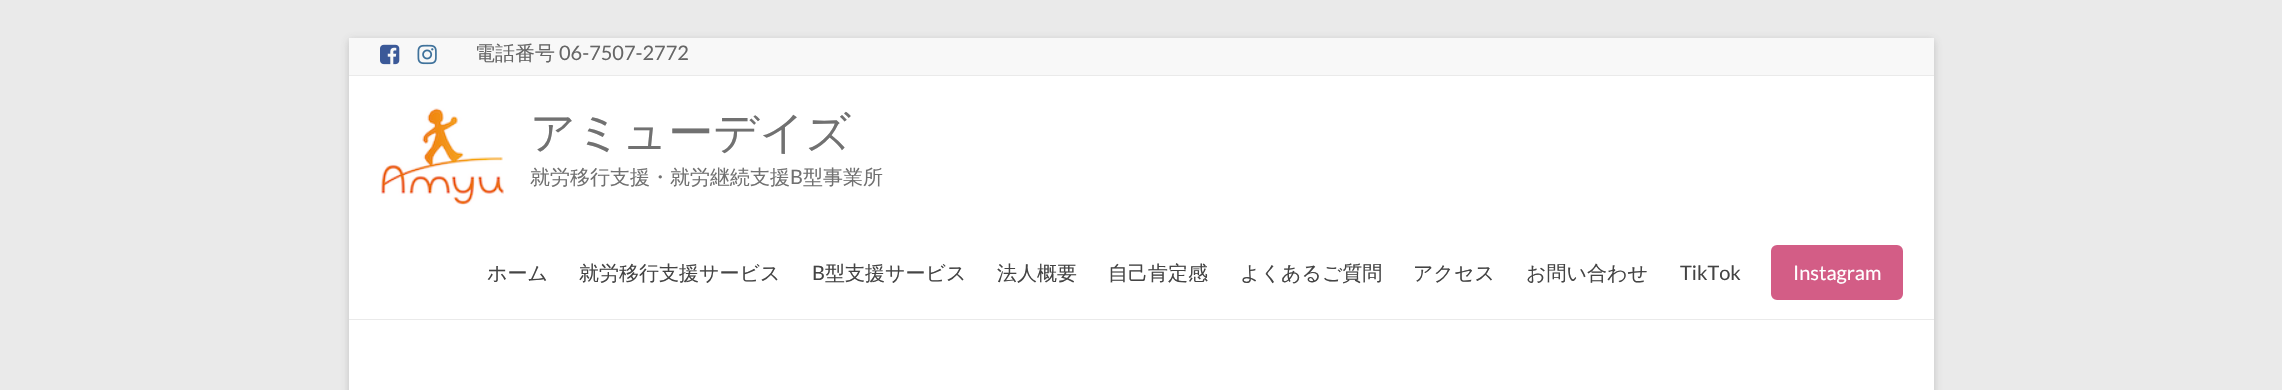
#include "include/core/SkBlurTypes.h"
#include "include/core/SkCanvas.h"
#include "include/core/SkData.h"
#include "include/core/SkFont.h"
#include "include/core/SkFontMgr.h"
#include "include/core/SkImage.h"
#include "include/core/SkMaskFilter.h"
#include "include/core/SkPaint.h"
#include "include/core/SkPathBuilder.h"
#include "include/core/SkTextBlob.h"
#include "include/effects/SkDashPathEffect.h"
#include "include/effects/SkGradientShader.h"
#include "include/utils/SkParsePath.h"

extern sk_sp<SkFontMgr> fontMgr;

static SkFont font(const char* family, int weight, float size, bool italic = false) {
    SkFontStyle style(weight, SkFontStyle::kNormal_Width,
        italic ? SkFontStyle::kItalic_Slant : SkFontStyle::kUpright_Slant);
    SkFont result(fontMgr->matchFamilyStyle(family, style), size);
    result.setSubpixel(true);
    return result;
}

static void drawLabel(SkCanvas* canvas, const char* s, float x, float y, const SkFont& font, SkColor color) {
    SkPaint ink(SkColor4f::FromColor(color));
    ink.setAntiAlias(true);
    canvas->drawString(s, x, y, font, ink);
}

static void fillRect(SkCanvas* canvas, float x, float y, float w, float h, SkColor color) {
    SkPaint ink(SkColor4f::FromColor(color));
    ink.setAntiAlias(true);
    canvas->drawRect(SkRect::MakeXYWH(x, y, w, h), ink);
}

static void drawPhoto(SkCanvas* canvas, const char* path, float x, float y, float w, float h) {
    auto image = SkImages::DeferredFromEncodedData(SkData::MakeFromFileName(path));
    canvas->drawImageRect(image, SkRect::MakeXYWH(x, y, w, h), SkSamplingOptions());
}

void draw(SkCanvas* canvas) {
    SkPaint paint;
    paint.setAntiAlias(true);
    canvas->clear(0xFFEAEAEA);
    paint.setColor(0x4D646464);
    paint.setMaskFilter(SkMaskFilter::MakeBlur(kNormal_SkBlurStyle, 4));
    canvas->drawRect(SkRect::MakeXYWH(349, 40, 1585, 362), paint);
    paint.setMaskFilter(nullptr);
    fillRect(canvas, 349, 76, 1585, 314, 0xFFFFFFFF);
    fillRect(canvas, 349, 38, 1585, 37, 0xFFF8F8F8);
    fillRect(canvas, 349, 75, 1585, 1, 0xFFEAEAEA);
    drawPhoto(canvas, "assets/img1.png", 380, 44, 20, 21);
    drawPhoto(canvas, "assets/img2.png", 417, 44, 20, 21);
    SkFont font1 = font("WenQuanYi Zen Hei", 500, 20);
    drawLabel(canvas, "電話番号", 475, 60, font1, 0xFF666666);
    SkFont font2 = font("Lato", 400, 20);
    drawLabel(canvas, "06-7507-2772", 559, 60, font2, 0xFF666666);
    fillRect(canvas, 349, 319, 1585, 1, 0xFFEAEAEA);
    drawPhoto(canvas, "assets/img3.png", 381, 108, 123, 97);
    SkFont font3 = font("WenQuanYi Zen Hei", 500, 45);
    drawLabel(canvas, "アミューデイズ", 530, 148, font3, 0xFF717171);
    drawLabel(canvas, "就労移行支援・就労継続支援", 530, 184, font1, 0xFF717171);
    drawLabel(canvas, "B", 790, 184, font2, 0xFF717171);
    drawLabel(canvas, "型事業所", 803, 184, font1, 0xFF717171);
    drawLabel(canvas, "ホーム", 487, 280, font1, 0xFF444444);
    drawLabel(canvas, "就労移行支援サービス", 579, 280, font1, 0xFF444444);
    drawLabel(canvas, "B", 812, 280, font2, 0xFF444444);
    drawLabel(canvas, "型支援サービス", 825, 280, font1, 0xFF444444);
    drawLabel(canvas, "法人概要", 997, 280, font1, 0xFF444444);
    drawLabel(canvas, "自己肯定感", 1108, 280, font1, 0xFF444444);
    drawLabel(canvas, "よくあるご質問", 1240, 280, font1, 0xFF444444);
    drawLabel(canvas, "アクセス", 1413, 280, font1, 0xFF444444);
    drawLabel(canvas, "お問い合わせ", 1526, 280, font1, 0xFF444444);
    drawLabel(canvas, "TikTok", 1680, 280, font2, 0xFF444444);
    paint.setColor(0xFFD35D86);
    canvas->drawRoundRect(SkRect::MakeXYWH(1772.5f, 246.5f, 129, 52), 4.5f, 4.5f, paint);
    paint.setStroke(true);
    paint.setStrokeWidth(3);
    canvas->drawRoundRect(SkRect::MakeXYWH(1772.5f, 246.5f, 129, 52), 4.5f, 4.5f, paint);
    drawLabel(canvas, "Instagram", 1793, 280, font2, 0xFFFFFFFF);
}
